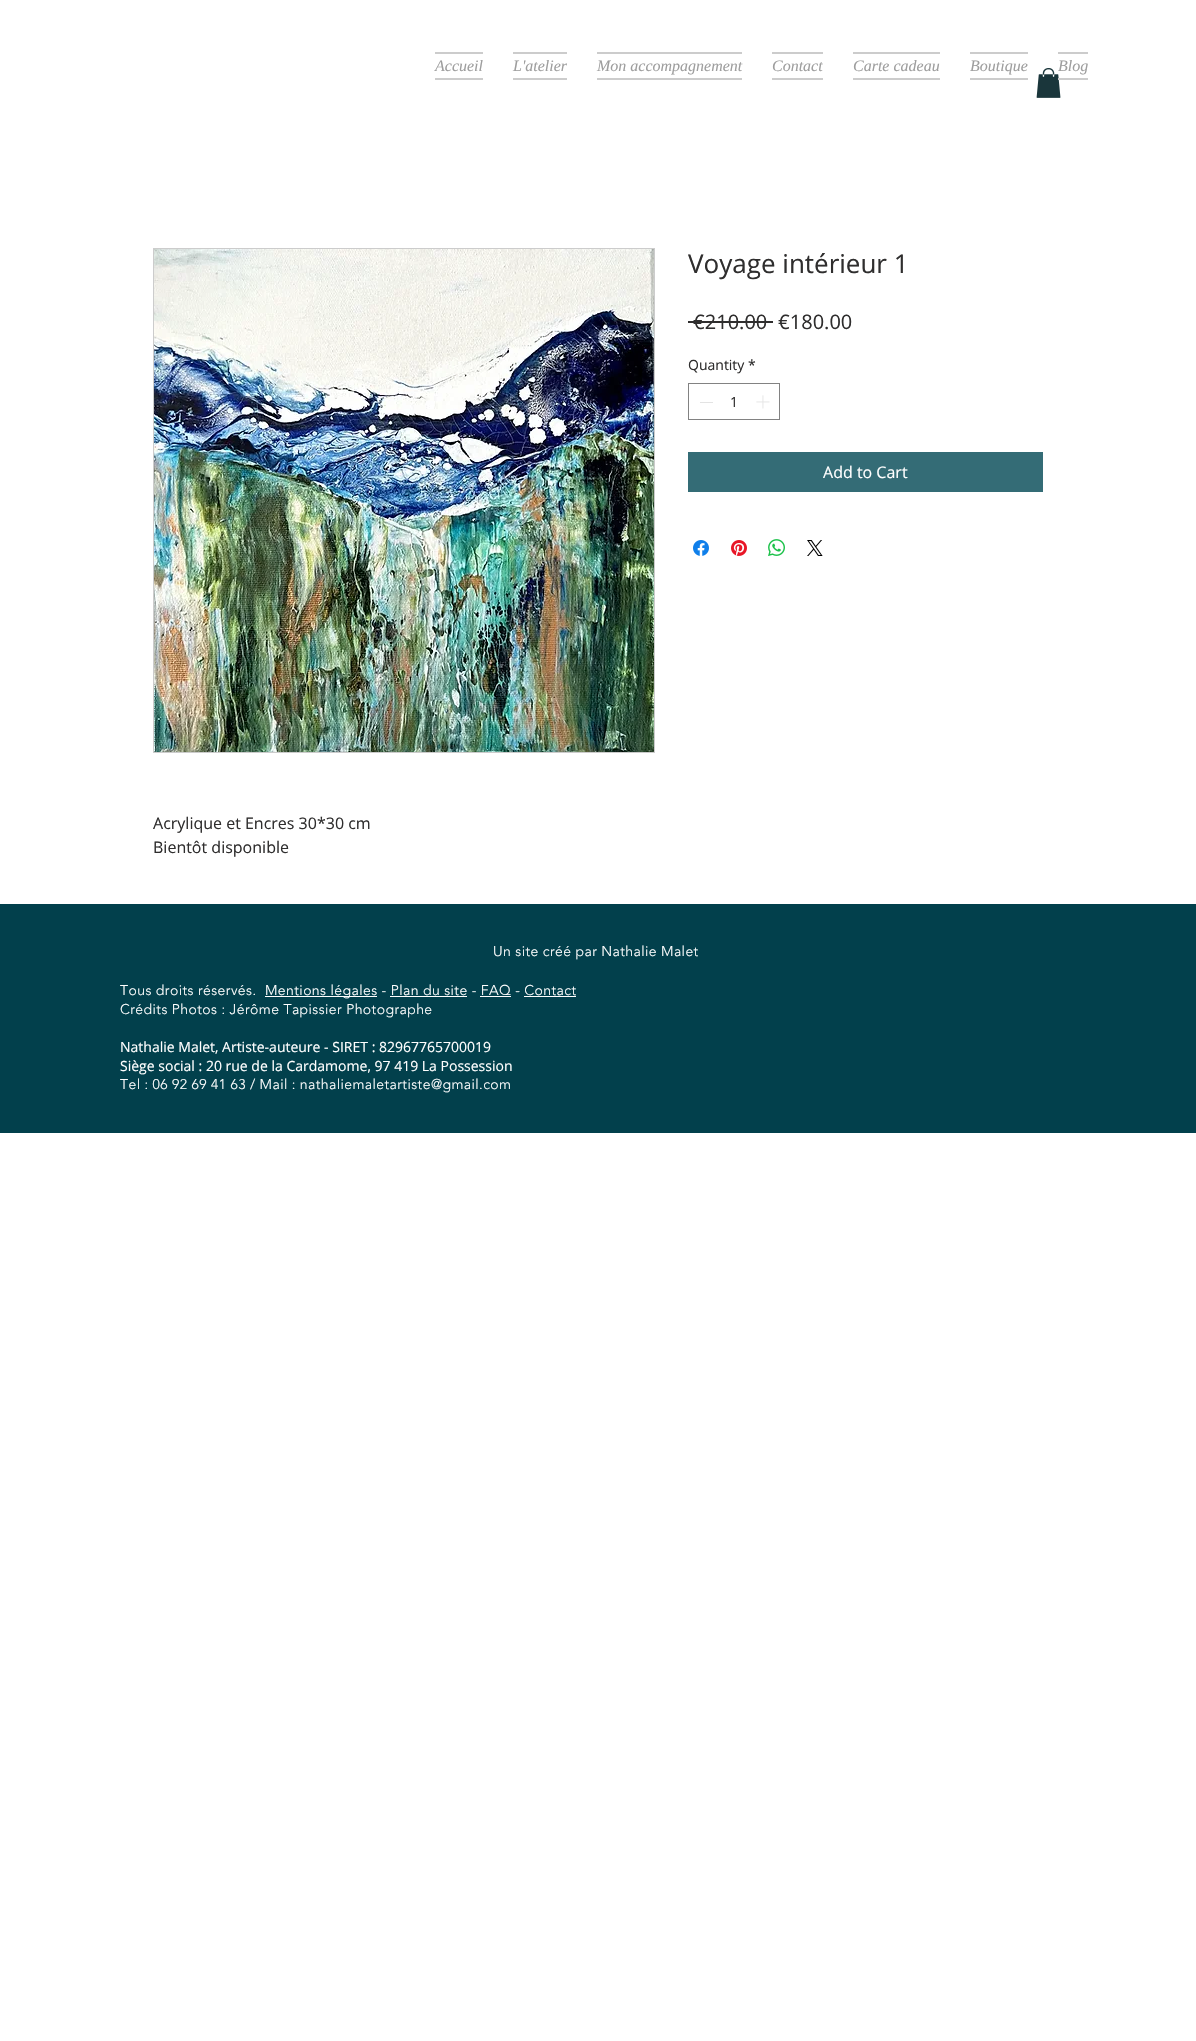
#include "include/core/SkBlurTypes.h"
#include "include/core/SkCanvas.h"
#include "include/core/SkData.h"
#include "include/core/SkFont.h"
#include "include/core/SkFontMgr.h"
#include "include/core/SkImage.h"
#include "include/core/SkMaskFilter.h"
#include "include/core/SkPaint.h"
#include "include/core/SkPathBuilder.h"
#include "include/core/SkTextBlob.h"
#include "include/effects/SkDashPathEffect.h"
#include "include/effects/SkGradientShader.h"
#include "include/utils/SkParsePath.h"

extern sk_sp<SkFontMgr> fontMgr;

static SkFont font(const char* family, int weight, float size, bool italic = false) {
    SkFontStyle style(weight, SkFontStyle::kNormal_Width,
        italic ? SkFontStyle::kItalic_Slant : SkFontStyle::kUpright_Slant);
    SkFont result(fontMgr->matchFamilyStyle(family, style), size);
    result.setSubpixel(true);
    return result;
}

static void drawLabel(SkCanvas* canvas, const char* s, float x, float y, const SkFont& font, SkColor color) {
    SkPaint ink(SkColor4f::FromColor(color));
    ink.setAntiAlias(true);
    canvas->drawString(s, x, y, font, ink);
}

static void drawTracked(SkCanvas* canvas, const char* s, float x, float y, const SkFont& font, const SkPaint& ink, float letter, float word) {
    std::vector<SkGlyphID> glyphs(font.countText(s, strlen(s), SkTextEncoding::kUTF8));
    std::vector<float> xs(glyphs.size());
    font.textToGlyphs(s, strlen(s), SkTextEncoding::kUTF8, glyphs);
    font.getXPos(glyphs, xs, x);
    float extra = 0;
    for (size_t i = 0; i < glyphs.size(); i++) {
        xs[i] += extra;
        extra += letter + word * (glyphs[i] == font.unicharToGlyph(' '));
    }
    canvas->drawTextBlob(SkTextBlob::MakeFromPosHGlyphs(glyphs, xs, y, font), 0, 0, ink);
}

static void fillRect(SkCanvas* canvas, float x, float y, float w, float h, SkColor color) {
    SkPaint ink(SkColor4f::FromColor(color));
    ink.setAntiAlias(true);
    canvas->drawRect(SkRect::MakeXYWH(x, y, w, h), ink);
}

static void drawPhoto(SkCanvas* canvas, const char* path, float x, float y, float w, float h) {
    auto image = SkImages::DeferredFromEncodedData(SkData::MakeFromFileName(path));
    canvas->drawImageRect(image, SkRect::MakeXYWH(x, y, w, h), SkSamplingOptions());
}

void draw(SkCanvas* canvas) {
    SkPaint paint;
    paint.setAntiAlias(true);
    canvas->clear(0xFFFFFFFF);
    fillRect(canvas, 435, 52, 48, 2, 0xFFCCCCCC);
    fillRect(canvas, 435, 78, 48, 2, 0xFFCCCCCC);
    SkFont font1 = font("Liberation Serif", 400, 16, true);
    drawLabel(canvas, "Accueil", 435, 71, font1, 0xFF9E9E9E);
    fillRect(canvas, 513, 52, 54, 2, 0xFFCCCCCC);
    fillRect(canvas, 513, 78, 54, 2, 0xFFCCCCCC);
    drawLabel(canvas, "L'atelier", 513, 71, font1, 0xFF9E9E9E);
    fillRect(canvas, 597, 52, 145, 2, 0xFFCCCCCC);
    fillRect(canvas, 597, 78, 145, 2, 0xFFCCCCCC);
    drawLabel(canvas, "Mon accompagnement", 597, 71, font1, 0xFF9E9E9E);
    fillRect(canvas, 772, 52, 51, 2, 0xFFCCCCCC);
    fillRect(canvas, 772, 78, 51, 2, 0xFFCCCCCC);
    drawLabel(canvas, "Contact", 772, 71, font1, 0xFF9E9E9E);
    fillRect(canvas, 853, 52, 87, 2, 0xFFCCCCCC);
    fillRect(canvas, 853, 78, 87, 2, 0xFFCCCCCC);
    drawLabel(canvas, "Carte cadeau", 853, 71, font1, 0xFF9E9E9E);
    fillRect(canvas, 970, 52, 58, 2, 0xFFCCCCCC);
    fillRect(canvas, 970, 78, 58, 2, 0xFFCCCCCC);
    drawLabel(canvas, "Boutique", 970, 71, font1, 0xFF9E9E9E);
    fillRect(canvas, 1058, 52, 30, 2, 0xFFCCCCCC);
    drawPhoto(canvas, "assets/img1.png", 1036, 68, 25, 30);
    fillRect(canvas, 1058, 78, 30, 2, 0xFFCCCCCC);
    drawLabel(canvas, "Blog", 1058, 71, font1, 0xFF9E9E9E);
    SkFont font2 = font("Open Sans", 400, 26);
    drawLabel(canvas, "Voyage intérieur 1", 688, 273, font2, 0xFF2F2E2E);
    SkFont font3 = font("Open Sans", 400, 20);
    drawLabel(canvas, "€210.00", 693, 329, font3, 0xFF2F2E2E);
    fillRect(canvas, 688, 321, 85, 2, 0xFF2F2E2E);
    drawLabel(canvas, "€180.00", 778, 329, font3, 0xFF2F2E2E);
    SkFont font4 = font("Open Sans", 400, 14);
    drawLabel(canvas, "Quantity", 688, 370, font4, 0xFF2F2E2E);
    drawLabel(canvas, "*", 748, 370, font4, 0xFF2F2E2E);
    paint.setStroke(true);
    paint.setStrokeWidth(1);
    paint.setColor(0xFF828282);
    canvas->drawRect(SkRect::MakeXYWH(688.5f, 383.5f, 91, 36), paint);
    fillRect(canvas, 700, 402, 13, 1, 0xFFE3E3E3);
    drawLabel(canvas, "1", 730, 407, font4, 0xFF2F2E2E);
    drawPhoto(canvas, "assets/img2.png", 756, 395, 14, 14);
    fillRect(canvas, 688, 452, 355, 40, 0xFF346C76);
    SkFont font5 = font("Open Sans", 400, 16);
    drawLabel(canvas, "Add to Cart", 823, 478, font5, 0xFFFFFFFF);
    drawPhoto(canvas, "assets/img3.png", 693, 540, 16, 16);
    drawPhoto(canvas, "assets/img4.png", 731, 540, 16, 16);
    drawPhoto(canvas, "assets/img5.png", 768, 539, 17, 17);
    drawPhoto(canvas, "assets/img6.png", 807, 540, 16, 16);
    paint.setColor(0xFFCCCCCC);
    canvas->drawRect(SkRect::MakeXYWH(153.5f, 248.5f, 501, 504), paint);
    drawPhoto(canvas, "assets/img7.png", 154, 249, 500, 503);
    drawLabel(canvas, "Acrylique et Encres 30*30 cm", 153, 829, font5, 0xFF2F2E2E);
    drawLabel(canvas, "Bientôt disponible", 153, 853, font5, 0xFF2F2E2E);
    fillRect(canvas, 0, 904, 1196, 229, 0xFF02404C);
    SkFont font6 = font("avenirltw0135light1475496", 300, 14);
    paint.setStroke(false);
    paint.setColor(0xFFFFFFFF);
    drawTracked(canvas, "Un site créé par Nathalie Malet", 493, 956, font6, paint, 0.42f, 0);
    drawTracked(canvas, "Tous droits réservés.", 120, 995, font6, paint, 0.42f, 0);
    fillRect(canvas, 265, 996, 112, 1, 0xFFFFFFFF);
    drawTracked(canvas, "Mentions légales - Plan du site - FAQ - Contact", 265, 995, font6, paint, 0.42f, 0);
    fillRect(canvas, 390, 996, 77, 1, 0xFFFFFFFF);
    fillRect(canvas, 480, 996, 31, 1, 0xFFFFFFFF);
    fillRect(canvas, 524, 996, 52, 1, 0xFFFFFFFF);
    drawTracked(canvas, "Crédits Photos : Jérôme Tapissier Photographe", 120, 1014, font6, paint, 0.42f, 0);
    drawLabel(canvas, "Nathalie Malet, Artiste-auteure - SIRET : 82967765700019", 120, 1052, font4, 0xFFFFFFFF);
    drawLabel(canvas, "Siège social : 20 rue de la Cardamome, 97 419 La Possession", 120, 1071, font4, 0xFFFFFFFF);
    drawTracked(canvas, "Tel : 06 92 69 41 63 / Mail : nathaliemaletartiste@gmail.com", 120, 1089, font6, paint, 0.42f, 0);
}
